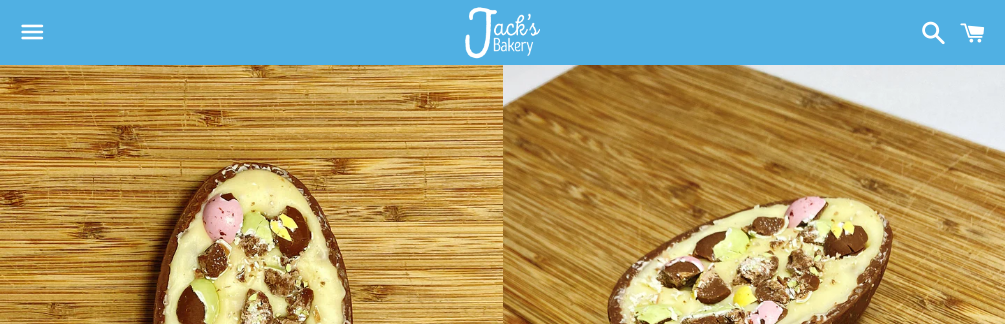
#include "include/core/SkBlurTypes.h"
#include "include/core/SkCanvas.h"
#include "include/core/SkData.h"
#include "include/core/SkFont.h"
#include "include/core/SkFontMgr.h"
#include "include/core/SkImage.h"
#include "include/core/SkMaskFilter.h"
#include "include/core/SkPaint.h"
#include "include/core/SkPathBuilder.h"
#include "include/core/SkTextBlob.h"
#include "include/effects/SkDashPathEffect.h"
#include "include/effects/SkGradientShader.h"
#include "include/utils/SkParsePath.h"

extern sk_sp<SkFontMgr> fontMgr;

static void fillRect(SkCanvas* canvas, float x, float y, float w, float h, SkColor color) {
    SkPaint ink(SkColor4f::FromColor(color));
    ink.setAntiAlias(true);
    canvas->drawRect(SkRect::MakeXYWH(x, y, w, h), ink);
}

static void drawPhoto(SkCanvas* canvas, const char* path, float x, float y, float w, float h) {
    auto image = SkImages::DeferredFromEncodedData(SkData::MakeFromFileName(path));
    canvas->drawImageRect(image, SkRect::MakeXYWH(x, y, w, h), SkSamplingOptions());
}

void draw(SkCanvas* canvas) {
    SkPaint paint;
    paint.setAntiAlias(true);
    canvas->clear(0xFFFFFFFF);
    fillRect(canvas, 0, 0, 1005, 65, 0xFF50B0E3);
    drawPhoto(canvas, "assets/img1.png", 21, 24, 23, 16);
    drawPhoto(canvas, "assets/img2.png", 465, 7, 75, 52);
    drawPhoto(canvas, "assets/img3.png", 922, 21, 23, 24);
    drawPhoto(canvas, "assets/img4.png", 960, 23, 25, 20);
    drawPhoto(canvas, "assets/img5.png", 0, 65, 503, 259);
    drawPhoto(canvas, "assets/img6.png", 503, 65, 502, 259);
}
